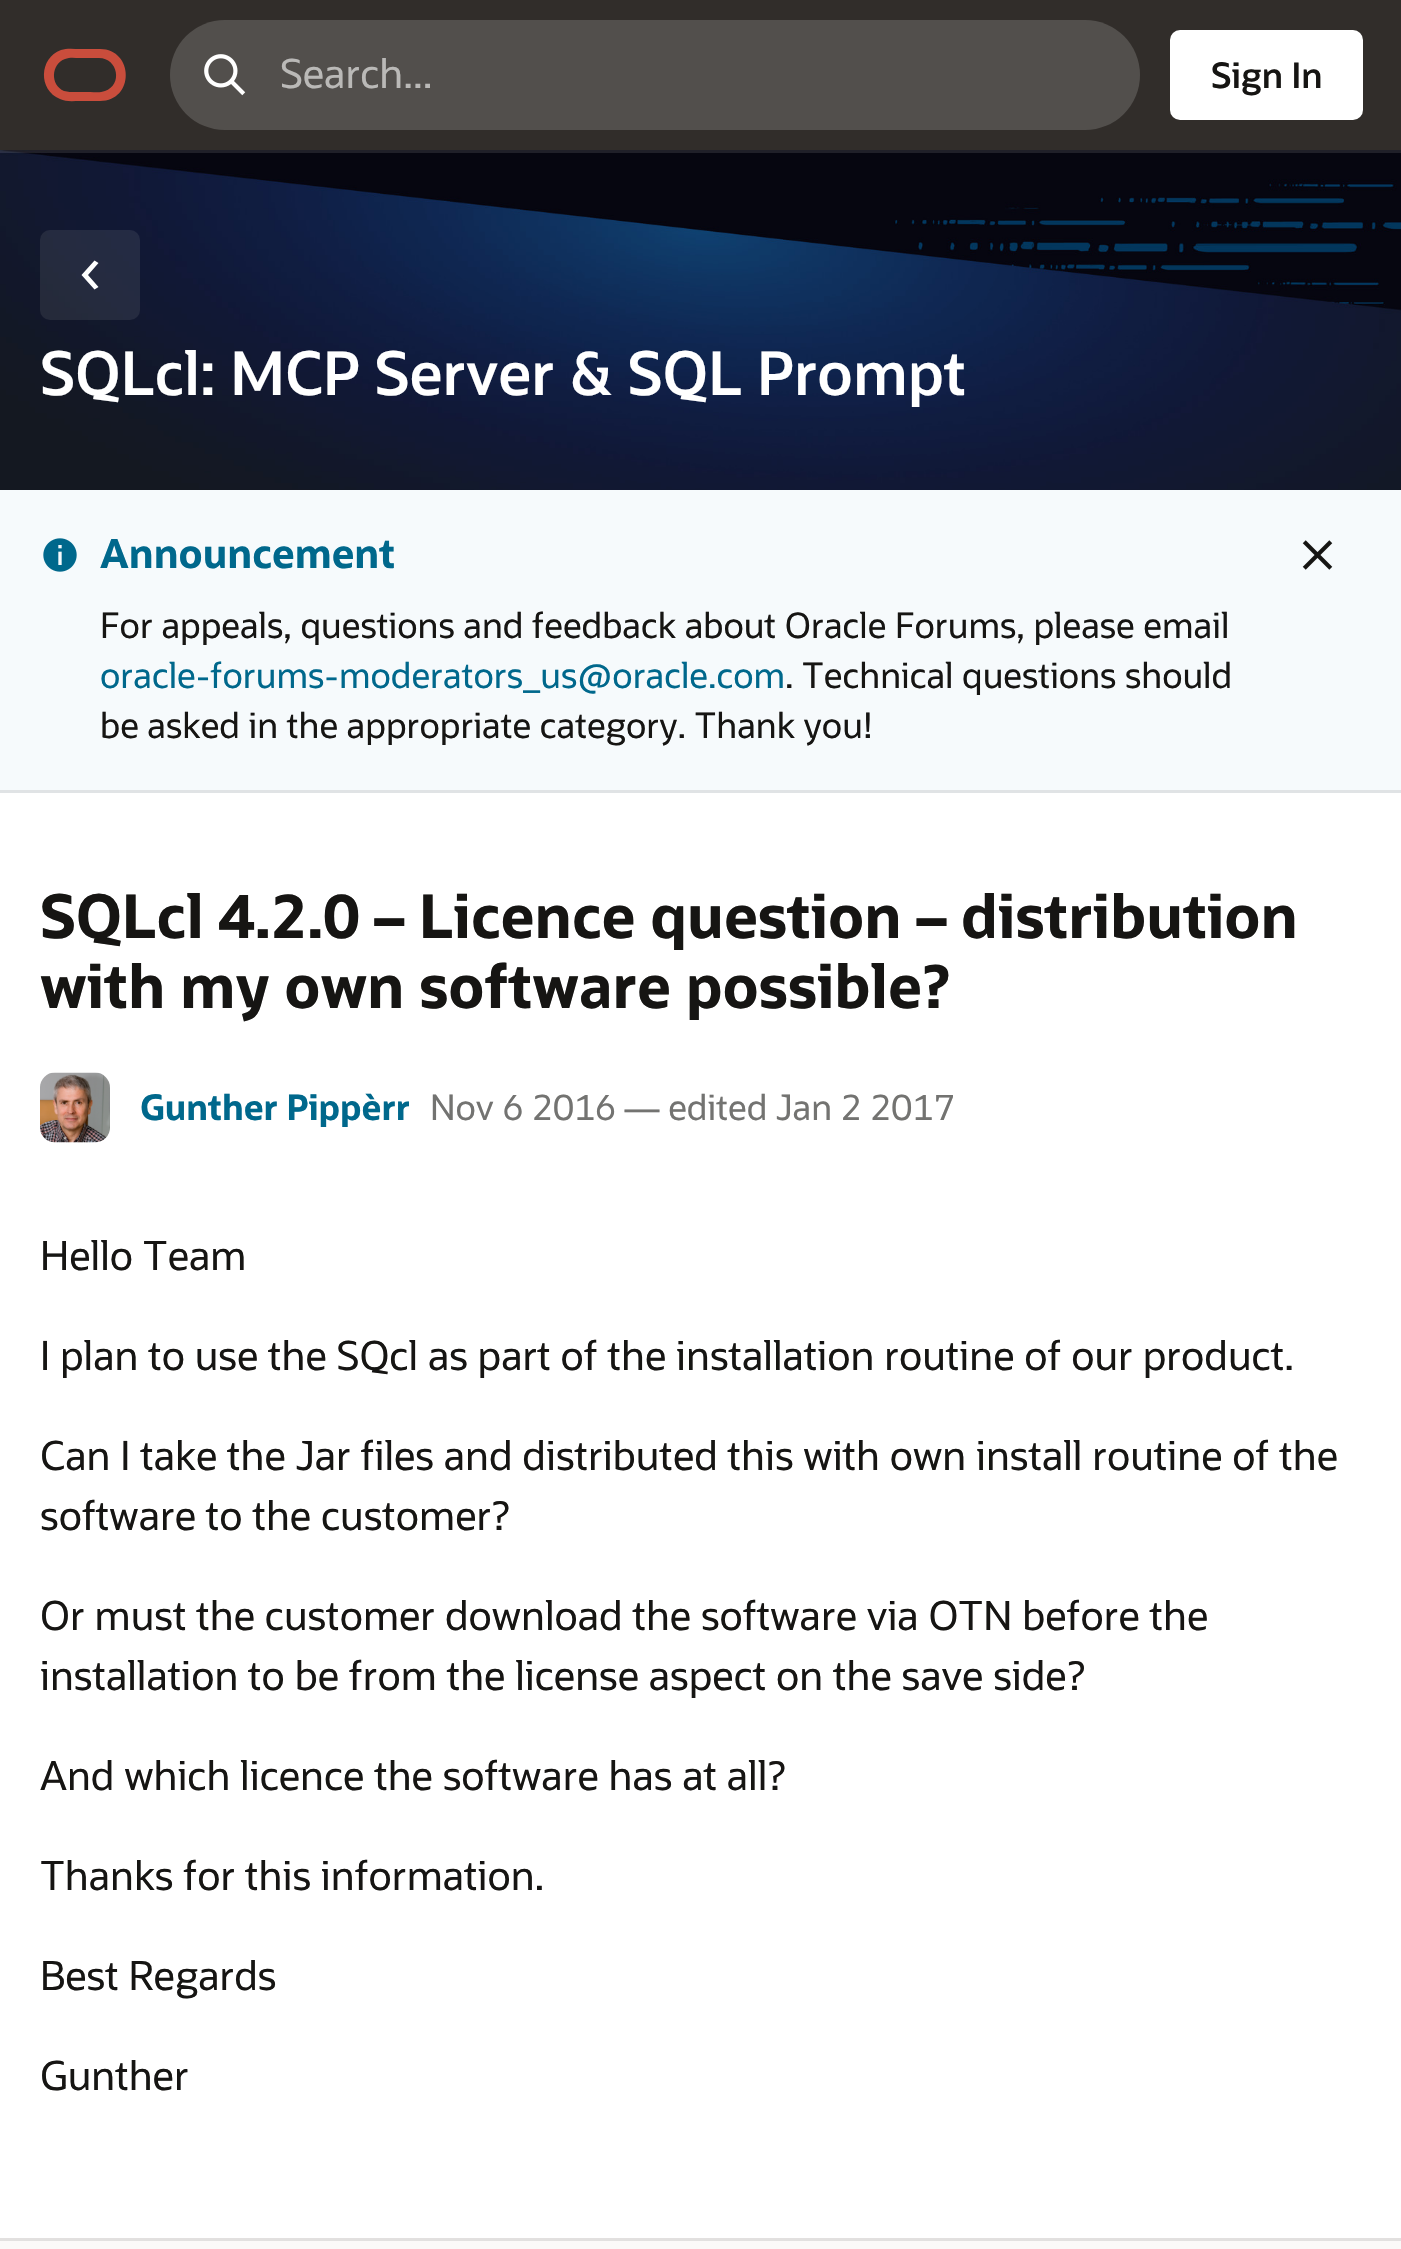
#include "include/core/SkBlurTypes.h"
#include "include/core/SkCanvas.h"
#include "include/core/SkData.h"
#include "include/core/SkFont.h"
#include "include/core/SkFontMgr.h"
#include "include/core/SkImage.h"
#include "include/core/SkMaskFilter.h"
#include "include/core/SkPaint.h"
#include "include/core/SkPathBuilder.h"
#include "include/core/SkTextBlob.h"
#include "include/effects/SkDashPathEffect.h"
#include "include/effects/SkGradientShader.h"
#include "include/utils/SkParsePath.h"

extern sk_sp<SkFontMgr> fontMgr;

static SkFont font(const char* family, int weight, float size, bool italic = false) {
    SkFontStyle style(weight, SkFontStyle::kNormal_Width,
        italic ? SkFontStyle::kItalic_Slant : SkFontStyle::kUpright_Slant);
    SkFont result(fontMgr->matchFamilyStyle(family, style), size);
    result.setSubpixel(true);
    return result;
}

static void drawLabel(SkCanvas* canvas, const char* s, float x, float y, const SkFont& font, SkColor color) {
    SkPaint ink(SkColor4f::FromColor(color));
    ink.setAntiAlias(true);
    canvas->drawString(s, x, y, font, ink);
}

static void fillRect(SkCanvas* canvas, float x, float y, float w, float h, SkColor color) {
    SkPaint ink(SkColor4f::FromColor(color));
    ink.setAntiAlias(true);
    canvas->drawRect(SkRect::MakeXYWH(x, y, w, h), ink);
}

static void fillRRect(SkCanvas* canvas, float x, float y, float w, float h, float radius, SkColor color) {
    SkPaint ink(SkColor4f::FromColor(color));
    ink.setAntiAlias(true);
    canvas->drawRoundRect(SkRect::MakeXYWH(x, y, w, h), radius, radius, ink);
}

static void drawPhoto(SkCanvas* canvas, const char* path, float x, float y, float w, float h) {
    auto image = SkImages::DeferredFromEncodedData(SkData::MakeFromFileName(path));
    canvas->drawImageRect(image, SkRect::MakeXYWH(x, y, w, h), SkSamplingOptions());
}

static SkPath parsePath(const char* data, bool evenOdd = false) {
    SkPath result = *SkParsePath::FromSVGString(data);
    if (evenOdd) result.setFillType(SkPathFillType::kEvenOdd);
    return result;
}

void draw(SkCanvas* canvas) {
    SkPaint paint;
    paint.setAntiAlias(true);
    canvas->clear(0xFFFFFFFF);
    drawPhoto(canvas, "assets/img2.png", 0, 150, 1401, 340);
    paint.setStroke(true);
    paint.setStrokeWidth(3);
    paint.setColor(0x1AFFFFFF);
    canvas->drawRect(SkRect::MakeXYWH(-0.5f, -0.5f, 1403, 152), paint);
    fillRect(canvas, 0, 0, 1401, 150, 0xFF312D2A);
    paint.setStroke(false);
    paint.setColor(0xFFCA4D3C);
    canvas->drawPath(parsePath("M100 49C134 49 135 101 100 101H80C73 101 66 102 60 99C38 90 39 58 61 50C67 48 74 49 80 49ZM99 58H80C75 58 70 57 65 59C51 64 50 85 64 91C68 92 71 92 75 92H90C95 92 100 93 105 91C123 85 118 58 99 58Z"), paint);
    fillRRect(canvas, 170, 20, 970, 110, 55, 0xFF524F4C);
    drawPhoto(canvas, "assets/img1.png", 204, 54, 42, 42);
    SkFont font1 = font("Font", 400, 40);
    drawLabel(canvas, "Search...", 280, 88, font1, 0xFFBAB9B7);
    fillRRect(canvas, 1170, 30, 193, 90, 10, 0xFFFFFFFF);
    SkFont font2 = font("Font", 600, 35);
    drawLabel(canvas, "Sign In", 1211, 88, font2, 0xFF161513);
    fillRRect(canvas, 40, 230, 100, 90, 10, 0x14FBF9F8);
    paint.setColor(0xFFFFFFFF);
    canvas->drawPath(parsePath("M98.5 287L94.5 289.5L81.5 275L94.5 260.5L98.5 263L88 275Z"), paint);
    SkFont font3 = font("Font", 600, 60);
    drawLabel(canvas, "SQLcl: MCP Server & SQL Prompt", 40, 395, font3, 0xFFFFFFFF);
    fillRect(canvas, 0, 2241, 1401, 8, 0xFFFBF9F8);
    fillRect(canvas, 0, 490, 1401, 300, 0xFFF6FAFC);
    fillRect(canvas, 0, 790, 1401, 3, 0xFFE0E3E5);
    drawPhoto(canvas, "assets/img3.png", 43, 538, 34, 34);
    SkFont font4 = font("Font", 700, 40);
    drawLabel(canvas, "Announcement", 100, 568, font4, 0xFF00688C);
    SkFont font5 = font("Font", 400, 35);
    drawLabel(canvas, "For appeals, questions and feedback about Oracle Forums, please email", 100, 638, font5, 0xFF161513);
    drawLabel(canvas, "oracle-forums-moderators_us@oracle.com", 100, 688, font5, 0xFF00688C);
    drawLabel(canvas, ". Technical questions should", 785, 688, font5, 0xFF161513);
    drawLabel(canvas, "be asked in the appropriate category. Thank you!", 100, 738, font5, 0xFF161513);
    drawPhoto(canvas, "assets/img4.png", 1302, 540, 31, 30);
    SkFont font6 = font("Font", 700, 60);
    drawLabel(canvas, "SQLcl 4.2.0 – Licence question – distribution", 40, 938, font6, 0xFF161513);
    drawLabel(canvas, "with my own software possible?", 40, 1008, font6, 0xFF161513);
    drawPhoto(canvas, "assets/img5.png", 40, 1072, 70, 71);
    SkFont font7 = font("Font", 700, 35);
    drawLabel(canvas, "Gunther Pippèrr", 140, 1120, font7, 0xFF00688C);
    drawLabel(canvas, "Nov 6 2016 — edited Jan 2 2017", 430, 1120, font5, 0xFF737371);
    drawLabel(canvas, "Hello Team", 40, 1270, font1, 0xFF161513);
    drawLabel(canvas, "I plan to use the SQcl as part of the installation routine of our product.", 40, 1370, font1, 0xFF161513);
    drawLabel(canvas, "Can I take the Jar files and distributed this with own install routine of the", 40, 1470, font1, 0xFF161513);
    drawLabel(canvas, "software to the customer?", 40, 1530, font1, 0xFF161513);
    drawLabel(canvas, "Or must the customer download the software via OTN before the", 40, 1630, font1, 0xFF161513);
    drawLabel(canvas, "installation to be from the license aspect on the save side?", 40, 1690, font1, 0xFF161513);
    drawLabel(canvas, "And which licence the software has at all?", 40, 1790, font1, 0xFF161513);
    drawLabel(canvas, "Thanks for this information.", 40, 1890, font1, 0xFF161513);
    drawLabel(canvas, "Best Regards", 40, 1990, font1, 0xFF161513);
    drawLabel(canvas, "Gunther", 40, 2090, font1, 0xFF161513);
    fillRect(canvas, 0, 2238, 1401, 3, 0xFFE2E0DF);
}
